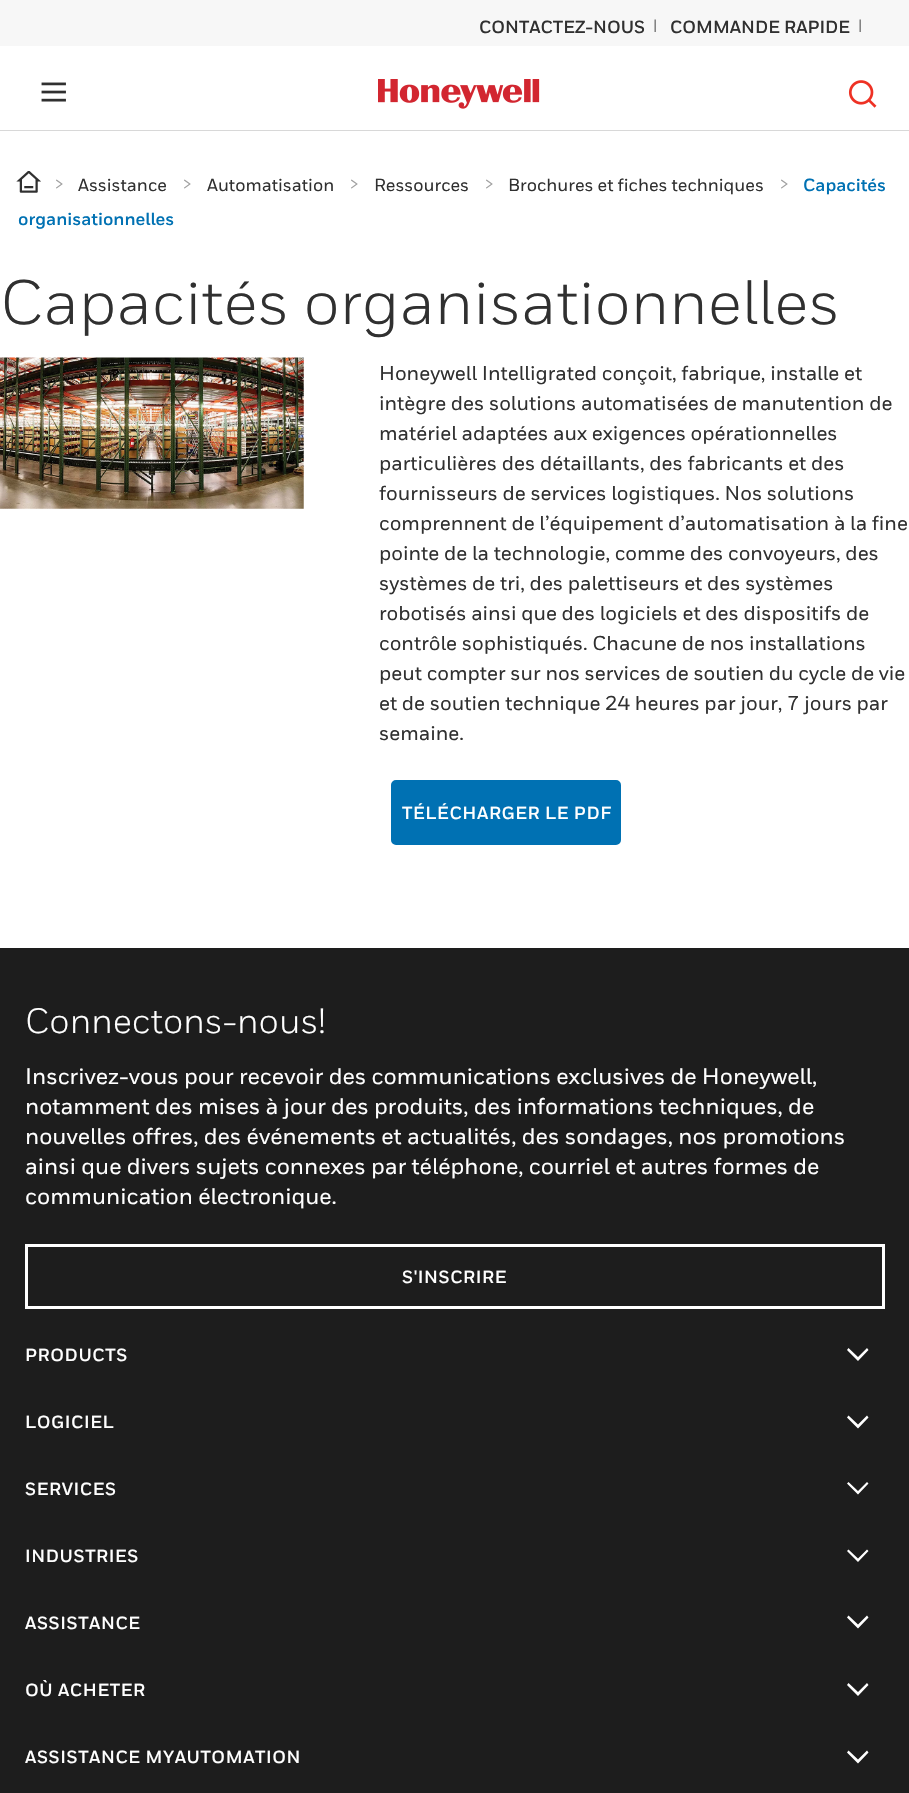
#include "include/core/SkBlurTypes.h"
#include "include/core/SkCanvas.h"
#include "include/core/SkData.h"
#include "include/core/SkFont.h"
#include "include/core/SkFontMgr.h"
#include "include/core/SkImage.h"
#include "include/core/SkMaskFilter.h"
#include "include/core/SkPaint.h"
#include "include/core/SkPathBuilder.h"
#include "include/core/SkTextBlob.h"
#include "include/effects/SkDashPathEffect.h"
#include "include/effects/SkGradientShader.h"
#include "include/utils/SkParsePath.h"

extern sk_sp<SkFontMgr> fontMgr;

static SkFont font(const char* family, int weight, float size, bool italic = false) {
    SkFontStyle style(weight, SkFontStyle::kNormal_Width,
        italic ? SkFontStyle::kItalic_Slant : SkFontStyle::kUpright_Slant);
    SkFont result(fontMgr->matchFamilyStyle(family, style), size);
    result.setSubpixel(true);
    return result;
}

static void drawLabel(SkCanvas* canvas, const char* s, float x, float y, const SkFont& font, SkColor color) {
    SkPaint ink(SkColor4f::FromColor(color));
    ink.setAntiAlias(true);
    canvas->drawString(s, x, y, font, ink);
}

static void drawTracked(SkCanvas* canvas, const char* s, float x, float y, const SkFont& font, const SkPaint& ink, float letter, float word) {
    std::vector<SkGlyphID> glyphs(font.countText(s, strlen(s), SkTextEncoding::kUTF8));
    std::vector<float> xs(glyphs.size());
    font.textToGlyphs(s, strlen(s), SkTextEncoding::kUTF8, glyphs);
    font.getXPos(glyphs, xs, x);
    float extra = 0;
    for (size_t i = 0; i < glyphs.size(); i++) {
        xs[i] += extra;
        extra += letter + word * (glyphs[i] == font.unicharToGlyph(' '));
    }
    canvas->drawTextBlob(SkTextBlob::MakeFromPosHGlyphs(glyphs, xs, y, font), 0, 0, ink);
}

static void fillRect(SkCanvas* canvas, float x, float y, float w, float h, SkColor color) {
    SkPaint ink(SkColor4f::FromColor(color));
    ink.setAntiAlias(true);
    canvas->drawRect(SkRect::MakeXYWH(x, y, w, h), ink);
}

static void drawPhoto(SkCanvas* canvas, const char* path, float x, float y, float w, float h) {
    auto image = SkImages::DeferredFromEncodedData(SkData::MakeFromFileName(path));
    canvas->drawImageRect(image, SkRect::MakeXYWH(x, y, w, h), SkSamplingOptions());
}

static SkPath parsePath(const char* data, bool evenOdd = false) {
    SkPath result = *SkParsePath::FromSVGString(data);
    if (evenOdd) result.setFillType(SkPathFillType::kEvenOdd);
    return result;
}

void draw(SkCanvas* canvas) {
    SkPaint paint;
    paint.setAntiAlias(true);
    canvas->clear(0xFFFFFFFF);
    fillRect(canvas, 0, 0, 909, 46, 0xFFF7F7F7);
    SkFont font1 = font("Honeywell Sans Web", 700, 17.5f);
    drawLabel(canvas, "CONTACTEZ-NOUS", 479, 33, font1, 0xFF303030);
    SkFont font2 = font("Honeywell Sans Web", 400, 15);
    drawLabel(canvas, "|", 653, 31, font2, 0xFF303030);
    drawLabel(canvas, "COMMANDE RAPIDE", 670, 33, font1, 0xFF303030);
    drawLabel(canvas, "|", 858, 31, font2, 0xFF303030);
    fillRect(canvas, 0, 130, 909, 1, 0xFFD8D8D8);
    drawPhoto(canvas, "assets/img1.png", 41, 82, 25, 20);
    drawPhoto(canvas, "assets/img2.png", 378, 79, 162, 30);
    drawPhoto(canvas, "assets/img3.png", 848, 80, 29, 28);
    drawPhoto(canvas, "assets/img4.png", 16, 171, 25, 22);
    SkFont font3 = font("Honeywell Sans Web", 400, 22.5f);
    drawLabel(canvas, ">", 54, 191, font3, 0xFFA0A0A0);
    SkFont font4 = font("Honeywell Sans Web", 500, 17.5f);
    drawLabel(canvas, "Assistance", 78, 191, font4, 0xFF303030);
    drawLabel(canvas, ">", 182, 191, font3, 0xFFA0A0A0);
    drawLabel(canvas, "Automatisation", 207, 191, font4, 0xFF303030);
    drawLabel(canvas, ">", 349, 191, font3, 0xFFA0A0A0);
    drawLabel(canvas, "Ressources", 374, 191, font4, 0xFF303030);
    drawLabel(canvas, ">", 484, 191, font3, 0xFFA0A0A0);
    drawLabel(canvas, "Brochures et fiches techniques", 508, 191, font4, 0xFF303030);
    drawLabel(canvas, ">", 779, 191, font3, 0xFFA0A0A0);
    drawLabel(canvas, "Capacités", 803, 191, font1, 0xFF0071B3);
    drawLabel(canvas, "organisationnelles", 18, 225, font1, 0xFF0071B3);
    SkFont font5 = font("Honeywell Sans Web", 400, 62.5f);
    drawLabel(canvas, "Capacités organisationnelles", 0, 324, font5, 0xFF303030);
    drawPhoto(canvas, "assets/img5.png", 0, 357, 304, 152);
    SkFont font6 = font("Honeywell Sans Web", 500, 20);
    drawLabel(canvas, "Honeywell Intelligrated conçoit, fabrique, installe et", 379, 380, font6, 0xFF303030);
    drawLabel(canvas, "intègre des solutions automatisées de manutention de", 379, 410, font6, 0xFF303030);
    drawLabel(canvas, "matériel adaptées aux exigences opérationnelles", 379, 440, font6, 0xFF303030);
    drawLabel(canvas, "particulières des détaillants, des fabricants et des", 379, 470, font6, 0xFF303030);
    drawLabel(canvas, "fournisseurs de services logistiques. Nos solutions", 379, 500, font6, 0xFF303030);
    drawLabel(canvas, "comprennent de l’équipement d’automatisation à la fine", 379, 530, font6, 0xFF303030);
    drawLabel(canvas, "pointe de la technologie, comme des convoyeurs, des", 379, 560, font6, 0xFF303030);
    drawLabel(canvas, "systèmes de tri, des palettiseurs et des systèmes", 379, 590, font6, 0xFF303030);
    drawLabel(canvas, "robotisés ainsi que des logiciels et des dispositifs de", 379, 620, font6, 0xFF303030);
    drawLabel(canvas, "contrôle sophistiqués. Chacune de nos installations", 379, 650, font6, 0xFF303030);
    drawLabel(canvas, "peut compter sur nos services de soutien du cycle de vie", 379, 680, font6, 0xFF303030);
    drawLabel(canvas, "et de soutien technique 24 heures par jour, 7 jours par", 379, 710, font6, 0xFF303030);
    drawLabel(canvas, "semaine.", 379, 740, font6, 0xFF303030);
    paint.setColor(0xFF0071B3);
    canvas->drawRoundRect(SkRect::MakeXYWH(392.5f, 781.5f, 227, 62), 3.5f, 3.5f, paint);
    paint.setStroke(true);
    paint.setStrokeWidth(3);
    canvas->drawRoundRect(SkRect::MakeXYWH(392.5f, 781.5f, 227, 62), 3.5f, 3.5f, paint);
    paint.setStroke(false);
    paint.setColor(0xFFFFFFFF);
    drawTracked(canvas, "TÉLÉCHARGER LE PDF", 402, 819, font1, paint, 0.6f, 0);
    fillRect(canvas, 0, 948, 909, 845, 0xFF1D1D1D);
    SkFont font7 = font("Honeywell Sans Web", 400, 35);
    drawLabel(canvas, "Connectons-nous!", 25, 1033, font7, 0xFFFFFFFF);
    SkFont font8 = font("Honeywell Sans Web", 500, 22.5f);
    drawLabel(canvas, "Inscrivez-vous pour recevoir des communications exclusives de Honeywell,", 25, 1084, font8, 0xFFFFFFFF);
    drawLabel(canvas, "notamment des mises à jour des produits, des informations techniques, de", 25, 1114, font8, 0xFFFFFFFF);
    drawLabel(canvas, "nouvelles offres, des événements et actualités, des sondages, nos promotions", 25, 1144, font8, 0xFFFFFFFF);
    drawLabel(canvas, "ainsi que divers sujets connexes par téléphone, courriel et autres formes de", 25, 1174, font8, 0xFFFFFFFF);
    drawLabel(canvas, "communication électronique.", 25, 1204, font8, 0xFFFFFFFF);
    paint.setStroke(true);
    canvas->drawRect(SkRect::MakeXYWH(26.5f, 1245.5f, 857, 62), paint);
    paint.setStroke(false);
    drawTracked(canvas, "S'INSCRIRE", 402, 1283, font1, paint, 0.6f, 0);
    drawTracked(canvas, "PRODUCTS", 25, 1361, font1, paint, 0.6f, 0);
    canvas->drawPath(parsePath("M867 1348L868.5 1350L858 1361L847 1350L848.5 1348L858 1357Z"), paint);
    drawTracked(canvas, "LOGICIEL", 25, 1428, font1, paint, 0.6f, 0);
    canvas->drawPath(parsePath("M867 1415.5L868.5 1417.5L858 1428.5L847 1417.5L848.5 1415.5L858 1424.5Z"), paint);
    drawTracked(canvas, "SERVICES", 25, 1495, font1, paint, 0.6f, 0);
    canvas->drawPath(parsePath("M867 1482L868.5 1483.5L858 1494.5L847 1483.5L848.5 1482L858 1491Z"), paint);
    drawTracked(canvas, "INDUSTRIES", 25, 1562, font1, paint, 0.6f, 0);
    canvas->drawPath(parsePath("M867 1549.5L868.5 1551L858 1562L847 1551L848.5 1549.5L858 1558.5Z"), paint);
    drawTracked(canvas, "ASSISTANCE", 25, 1629, font1, paint, 0.6f, 0);
    canvas->drawPath(parsePath("M867 1615.5L868.5 1617.5L858 1628.5L847 1617.5L848.5 1615.5L858 1624.5Z"), paint);
    drawTracked(canvas, "OÙ ACHETER", 25, 1696, font1, paint, 0.6f, 0);
    canvas->drawPath(parsePath("M867 1683L868.5 1685L858 1696L847 1685L848.5 1683L858 1692Z"), paint);
    drawTracked(canvas, "ASSISTANCE MYAUTOMATION", 25, 1763, font1, paint, 0.6f, 0);
    canvas->drawPath(parsePath("M867 1750.5L868.5 1752.5L858 1763.5L847 1752.5L848.5 1750.5L858 1759.5Z"), paint);
}
